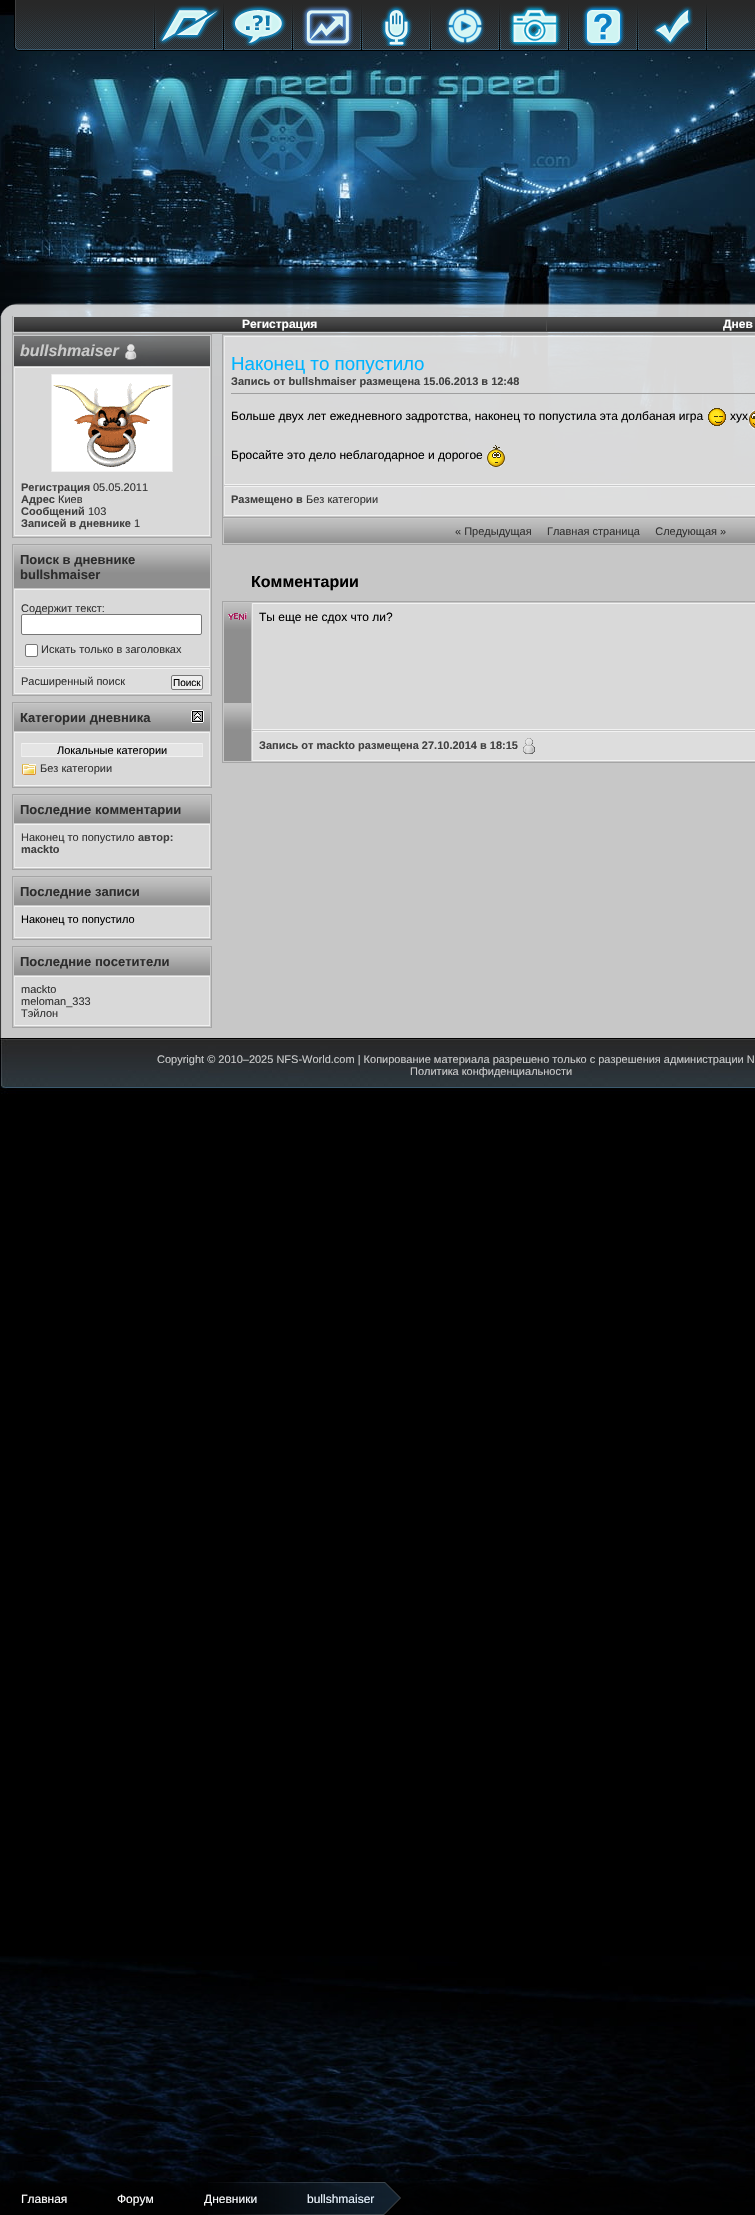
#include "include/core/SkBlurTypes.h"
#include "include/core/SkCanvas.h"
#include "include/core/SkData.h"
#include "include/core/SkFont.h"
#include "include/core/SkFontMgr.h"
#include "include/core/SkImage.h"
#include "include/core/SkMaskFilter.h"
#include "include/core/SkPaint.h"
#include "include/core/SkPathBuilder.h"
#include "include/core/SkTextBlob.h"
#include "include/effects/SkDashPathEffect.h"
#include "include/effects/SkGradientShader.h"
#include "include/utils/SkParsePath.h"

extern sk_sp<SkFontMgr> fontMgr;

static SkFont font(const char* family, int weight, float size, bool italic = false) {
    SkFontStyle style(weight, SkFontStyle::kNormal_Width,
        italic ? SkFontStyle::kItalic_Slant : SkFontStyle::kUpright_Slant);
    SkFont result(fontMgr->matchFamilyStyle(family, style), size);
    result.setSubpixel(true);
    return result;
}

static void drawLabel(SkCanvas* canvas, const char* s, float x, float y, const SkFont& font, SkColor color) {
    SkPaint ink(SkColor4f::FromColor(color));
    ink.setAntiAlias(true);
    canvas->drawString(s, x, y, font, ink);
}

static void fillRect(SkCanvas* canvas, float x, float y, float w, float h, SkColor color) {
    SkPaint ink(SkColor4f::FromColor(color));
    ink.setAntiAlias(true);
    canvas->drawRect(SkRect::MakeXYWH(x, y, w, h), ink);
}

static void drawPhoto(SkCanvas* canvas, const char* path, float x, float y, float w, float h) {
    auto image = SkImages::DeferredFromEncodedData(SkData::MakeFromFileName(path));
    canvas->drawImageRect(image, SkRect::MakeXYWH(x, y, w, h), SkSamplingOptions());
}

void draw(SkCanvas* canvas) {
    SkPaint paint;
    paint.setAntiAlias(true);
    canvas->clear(0xFF000000);
    drawPhoto(canvas, "assets/img1.png", 0, 1956, 755, 259);
    drawPhoto(canvas, "assets/img11.png", 0, 8, 755, 492);
    drawPhoto(canvas, "assets/img2.png", 14, 0, 741, 51);
    drawPhoto(canvas, "assets/img3.png", 158, 5, 63, 40);
    drawPhoto(canvas, "assets/img4.png", 230, 5, 57, 41);
    drawPhoto(canvas, "assets/img5.png", 302, 5, 52, 41);
    drawPhoto(canvas, "assets/img6.png", 380, 5, 33, 41);
    drawPhoto(canvas, "assets/img7.png", 445, 6, 40, 40);
    drawPhoto(canvas, "assets/img8.png", 508, 5, 53, 41);
    drawPhoto(canvas, "assets/img9.png", 582, 5, 43, 41);
    drawPhoto(canvas, "assets/img10.png", 652, 6, 41, 40);
    drawPhoto(canvas, "assets/img12.png", 0, 303, 755, 13);
    drawPhoto(canvas, "assets/img13.png", 0, 316, 755, 722);
    fillRect(canvas, 12, 333, 743, 1, 0xFFA5A5A5);
    fillRect(canvas, 12, 316, 1, 18, 0xFFA5A5A5);
    drawPhoto(canvas, "assets/img14.png", 14, 317, 532, 14);
    fillRect(canvas, 546, 317, 1, 15, 0xFF4C4C4C);
    fillRect(canvas, 14, 331, 741, 1, 0xFF4C4C4C);
    SkFont font1 = font("Liberation Sans", 700, 12);
    drawLabel(canvas, "Регистрация", 242, 328, font1, 0xFFFFFFFF);
    drawPhoto(canvas, "assets/img15.png", 547, 317, 208, 14);
    drawLabel(canvas, "Днев", 723, 328, font1, 0xFFFFFFFF);
    paint.setStroke(true);
    paint.setStrokeWidth(1);
    paint.setColor(0xFFA5A5A5);
    canvas->drawRect(SkRect::MakeXYWH(12.5f, 334.5f, 199, 203), paint);
    drawPhoto(canvas, "assets/img16.png", 14, 336, 196, 30);
    SkFont font2 = font("Liberation Sans", 700, 16, true);
    drawLabel(canvas, "bullshmaiser", 20, 356, font2, 0xFFCACACA);
    drawPhoto(canvas, "assets/img17.png", 125, 344, 12, 16);
    fillRect(canvas, 15, 368, 194, 167, 0xB3E0E0E0);
    fillRect(canvas, 14, 367, 196, 1, 0xFFF2F2F2);
    fillRect(canvas, 209, 367, 1, 169, 0xFFEBEBEB);
    fillRect(canvas, 14, 535, 196, 1, 0xFFF2F2F2);
    fillRect(canvas, 14, 367, 1, 169, 0xFFEBEBEB);
    fillRect(canvas, 51, 374, 122, 1, 0xFFF2F2F2);
    fillRect(canvas, 172, 374, 1, 98, 0xFFEBEBEB);
    fillRect(canvas, 51, 471, 122, 1, 0xFFF2F2F2);
    fillRect(canvas, 51, 374, 1, 98, 0xFFEBEBEB);
    drawPhoto(canvas, "assets/img18.png", 52, 375, 120, 96);
    drawPhoto(canvas, "assets/img19.png", 86, 383, 58, 84);
    SkFont font3 = font("Liberation Sans", 700, 11);
    drawLabel(canvas, "Регистрация", 21, 491, font3, 0xFF404040);
    SkFont font4 = font("Liberation Sans", 400, 11);
    drawLabel(canvas, "05.05.2011", 93, 491, font4, 0xFF333333);
    drawLabel(canvas, "Адрес", 21, 503, font3, 0xFF404040);
    drawLabel(canvas, "Киев", 58, 503, font4, 0xFF333333);
    drawLabel(canvas, "Сообщений", 21, 515, font3, 0xFF404040);
    drawLabel(canvas, "103", 88, 515, font4, 0xFF333333);
    drawLabel(canvas, "Записей в дневнике", 21, 527, font3, 0xFF404040);
    drawLabel(canvas, "1", 134, 527, font4, 0xFF333333);
    canvas->drawRect(SkRect::MakeXYWH(12.5f, 544.5f, 199, 151), paint);
    drawPhoto(canvas, "assets/img20.png", 14, 546, 196, 42);
    SkFont font5 = font("Liberation Sans", 700, 13);
    drawLabel(canvas, "Поиск в дневнике", 20, 564, font5, 0xFF2D2D2D);
    drawLabel(canvas, "bullshmaiser", 20, 579, font5, 0xFF2D2D2D);
    fillRect(canvas, 15, 590, 194, 76, 0xFFD9D9D9);
    fillRect(canvas, 14, 589, 196, 1, 0xFFF2F2F2);
    fillRect(canvas, 209, 589, 1, 78, 0xFFEBEBEB);
    fillRect(canvas, 14, 666, 196, 1, 0xFFF2F2F2);
    fillRect(canvas, 14, 589, 1, 78, 0xFFEBEBEB);
    drawLabel(canvas, "Содержит текст:", 21, 612, font4, 0xFF333333);
    paint.setStroke(false);
    paint.setColor(0xFFFFFFFF);
    canvas->drawRoundRect(SkRect::MakeXYWH(21.5f, 614.5f, 180, 20), 1.5f, 1.5f, paint);
    paint.setStroke(true);
    paint.setColor(0xFF767676);
    canvas->drawRoundRect(SkRect::MakeXYWH(21.5f, 614.5f, 180, 20), 1.5f, 1.5f, paint);
    paint.setStroke(false);
    paint.setColor(0xFFFFFFFF);
    canvas->drawRoundRect(SkRect::MakeXYWH(25.5f, 644.5f, 12, 12), 1.5f, 1.5f, paint);
    paint.setStroke(true);
    paint.setColor(0xFF767676);
    canvas->drawRoundRect(SkRect::MakeXYWH(25.5f, 644.5f, 12, 12), 1.5f, 1.5f, paint);
    drawLabel(canvas, "Искать только в заголовках", 41, 653, font4, 0xFF333333);
    fillRect(canvas, 15, 669, 194, 24, 0xFFDDDDDD);
    fillRect(canvas, 14, 668, 196, 1, 0xFFF2F2F2);
    fillRect(canvas, 209, 668, 1, 26, 0xFFEBEBEB);
    fillRect(canvas, 14, 693, 196, 1, 0xFFF2F2F2);
    fillRect(canvas, 14, 668, 1, 26, 0xFFEBEBEB);
    drawLabel(canvas, "Расширенный поиск", 21, 685, font4, 0xFF333333);
    paint.setStroke(false);
    paint.setColor(0xFFEFEFEF);
    canvas->drawRoundRect(SkRect::MakeXYWH(171.5f, 675.5f, 31, 14), 1.5f, 1.5f, paint);
    paint.setStroke(true);
    paint.setColor(0xFF767676);
    canvas->drawRoundRect(SkRect::MakeXYWH(171.5f, 675.5f, 31, 14), 1.5f, 1.5f, paint);
    SkFont font6 = font("Liberation Sans", 400, 10);
    drawLabel(canvas, "Поиск", 173, 686, font6, 0xFF000000);
    paint.setColor(0xFFA5A5A5);
    canvas->drawRect(SkRect::MakeXYWH(12.5f, 702.5f, 199, 85), paint);
    drawPhoto(canvas, "assets/img21.png", 14, 704, 196, 27);
    drawLabel(canvas, "Категории дневника", 20, 722, font5, 0xFF2D2D2D);
    drawPhoto(canvas, "assets/img22.png", 191, 710, 13, 13);
    fillRect(canvas, 15, 733, 194, 52, 0xFFD9D9D9);
    fillRect(canvas, 14, 732, 196, 1, 0xFFF2F2F2);
    fillRect(canvas, 209, 732, 1, 54, 0xFFEBEBEB);
    fillRect(canvas, 14, 785, 196, 1, 0xFFF2F2F2);
    fillRect(canvas, 14, 732, 1, 54, 0xFFEBEBEB);
    fillRect(canvas, 22, 744, 180, 12, 0xFFE4E4E4);
    fillRect(canvas, 21, 743, 182, 1, 0xFFF2F2F2);
    fillRect(canvas, 202, 743, 1, 14, 0xFFEBEBEB);
    fillRect(canvas, 21, 756, 182, 1, 0xFFF2F2F2);
    fillRect(canvas, 21, 743, 1, 14, 0xFFEBEBEB);
    drawLabel(canvas, "Локальные категории", 57, 754, font4, 0xFF000000);
    drawPhoto(canvas, "assets/img23.png", 22, 764, 14, 11);
    drawLabel(canvas, "Без категории", 40, 772, font4, 0xFF333333);
    canvas->drawRect(SkRect::MakeXYWH(12.5f, 794.5f, 199, 75), paint);
    drawPhoto(canvas, "assets/img21.png", 14, 796, 196, 27);
    drawLabel(canvas, "Последние комментарии", 20, 814, font5, 0xFF2D2D2D);
    fillRect(canvas, 15, 825, 194, 42, 0xFFD9D9D9);
    fillRect(canvas, 14, 824, 196, 1, 0xFFF2F2F2);
    fillRect(canvas, 209, 824, 1, 44, 0xFFEBEBEB);
    fillRect(canvas, 14, 867, 196, 1, 0xFFF2F2F2);
    fillRect(canvas, 14, 824, 1, 44, 0xFFEBEBEB);
    drawLabel(canvas, "Наконец то попустило", 21, 841, font4, 0xFF333333);
    drawLabel(canvas, "автор:", 138, 841, font3, 0xFF404040);
    drawLabel(canvas, "mackto", 21, 853, font3, 0xFF404040);
    canvas->drawRect(SkRect::MakeXYWH(12.5f, 876.5f, 199, 63), paint);
    drawPhoto(canvas, "assets/img21.png", 14, 878, 196, 27);
    drawLabel(canvas, "Последние записи", 20, 896, font5, 0xFF2D2D2D);
    fillRect(canvas, 15, 907, 194, 30, 0xFFD9D9D9);
    fillRect(canvas, 14, 906, 196, 1, 0xFFF2F2F2);
    fillRect(canvas, 209, 906, 1, 32, 0xFFEBEBEB);
    fillRect(canvas, 14, 937, 196, 1, 0xFFF2F2F2);
    fillRect(canvas, 14, 906, 1, 32, 0xFFEBEBEB);
    drawLabel(canvas, "Наконец то попустило", 21, 923, font4, 0xFF000000);
    canvas->drawRect(SkRect::MakeXYWH(12.5f, 946.5f, 199, 81), paint);
    drawPhoto(canvas, "assets/img21.png", 14, 948, 196, 27);
    drawLabel(canvas, "Последние посетители", 20, 966, font5, 0xFF2D2D2D);
    fillRect(canvas, 15, 977, 194, 48, 0xFFD9D9D9);
    fillRect(canvas, 14, 976, 196, 1, 0xFFF2F2F2);
    fillRect(canvas, 209, 976, 1, 50, 0xFFEBEBEB);
    fillRect(canvas, 14, 1025, 196, 1, 0xFFF2F2F2);
    fillRect(canvas, 14, 976, 1, 50, 0xFFEBEBEB);
    drawLabel(canvas, "mackto", 21, 993, font4, 0xFF333333);
    drawLabel(canvas, "meloman_333", 21, 1005, font4, 0xFF333333);
    drawLabel(canvas, "Тэйлон", 21, 1017, font4, 0xFF333333);
    canvas->drawRect(SkRect::MakeXYWH(222.5f, 334.5f, 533, 183), paint);
    fillRect(canvas, 225, 337, 530, 147, 0xB3E0E0E0);
    fillRect(canvas, 224, 336, 531, 1, 0xFFF2F2F2);
    fillRect(canvas, 224, 484, 531, 1, 0xFFF2F2F2);
    fillRect(canvas, 224, 336, 1, 149, 0xFFEBEBEB);
    SkFont font7 = font("Liberation Sans", 400, 18.75f);
    drawLabel(canvas, "Наконец то попустило", 231, 370, font7, 0xFF00B4FF);
    drawLabel(canvas, "Запись от bullshmaiser размещена 15.06.2013 в 12:48", 231, 385, font3, 0xFF404040);
    fillRect(canvas, 231, 393, 524, 1, 0xFF9F9F9F);
    SkFont font8 = font("Liberation Sans", 400, 12);
    drawLabel(canvas, "Больше двух лет ежедневного задротства, наконец то попустила эта долбаная игра", 231, 420, font8, 0xFF000000);
    drawPhoto(canvas, "assets/img24.png", 708, 408, 18, 18);
    drawLabel(canvas, "хух", 730, 420, font8, 0xFF000000);
    drawPhoto(canvas, "assets/img25.png", 749, 410, 6, 19);
    drawLabel(canvas, "Бросайте это дело неблагодарное и дорогое", 231, 459, font8, 0xFF000000);
    drawPhoto(canvas, "assets/img26.png", 487, 445, 18, 22);
    fillRect(canvas, 225, 487, 530, 28, 0x99EBEBEB);
    fillRect(canvas, 224, 486, 531, 1, 0xFFF2F2F2);
    fillRect(canvas, 224, 515, 531, 1, 0xFFF2F2F2);
    fillRect(canvas, 224, 486, 1, 30, 0xFFEBEBEB);
    drawLabel(canvas, "Размещено в", 231, 503, font3, 0xFF404040);
    drawLabel(canvas, "Без категории", 306, 503, font4, 0xFF333333);
    fillRect(canvas, 222, 544, 533, 1, 0xFFA5A5A5);
    fillRect(canvas, 222, 518, 1, 27, 0xFFA5A5A5);
    drawPhoto(canvas, "assets/img27.png", 224, 519, 531, 24);
    drawLabel(canvas, "« Предыдущая     Главная страница     Следующая »", 455, 535, font4, 0xFF333333);
    SkFont font9 = font("Liberation Sans", 700, 16);
    drawLabel(canvas, "Комментарии", 251, 587, font9, 0xFF000000);
    canvas->drawRect(SkRect::MakeXYWH(222.5f, 601.5f, 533, 161), paint);
    drawPhoto(canvas, "assets/img28.png", 224, 603, 27, 158);
    drawPhoto(canvas, "assets/img29.png", 228, 612, 19, 8);
    fillRect(canvas, 253, 604, 502, 125, 0xFFD9D9D9);
    fillRect(canvas, 252, 603, 503, 1, 0xFFF2F2F2);
    fillRect(canvas, 252, 729, 503, 1, 0xFFF2F2F2);
    fillRect(canvas, 252, 603, 1, 127, 0xFFEBEBEB);
    drawLabel(canvas, "Ты еще не сдох что ли?", 259, 621, font8, 0xFF000000);
    fillRect(canvas, 253, 732, 502, 28, 0xFFDDDDDD);
    fillRect(canvas, 252, 731, 503, 1, 0xFFF2F2F2);
    fillRect(canvas, 252, 760, 503, 1, 0xFFF2F2F2);
    fillRect(canvas, 252, 731, 1, 30, 0xFFEBEBEB);
    drawLabel(canvas, "Запись от mackto размещена 27.10.2014 в 18:15", 259, 749, font3, 0xFF404040);
    drawPhoto(canvas, "assets/img30.png", 523, 738, 12, 16);
    drawPhoto(canvas, "assets/img31.png", 0, 1038, 755, 56);
    drawLabel(canvas, "Copyright © 2010–2025 NFS-World.com | Копирование материала разрешено только с разрешения администрации N", 157, 1063, font4, 0xFFCACACA);
    drawLabel(canvas, "Политика конфиденциальности", 410, 1075, font4, 0xFFCACACA);
    drawPhoto(canvas, "assets/img32.png", 0, 2181, 755, 34);
    drawLabel(canvas, "Главная", 21, 2203, font8, 0xFFFFFFFF);
    drawLabel(canvas, "Форум", 117, 2203, font8, 0xFFFFFFFF);
    drawLabel(canvas, "Дневники", 204, 2203, font8, 0xFFFFFFFF);
    drawLabel(canvas, "bullshmaiser", 307, 2203, font8, 0xFFFFFFFF);
    drawPhoto(canvas, "assets/img33.png", 208, 2182, 193, 33);
}
